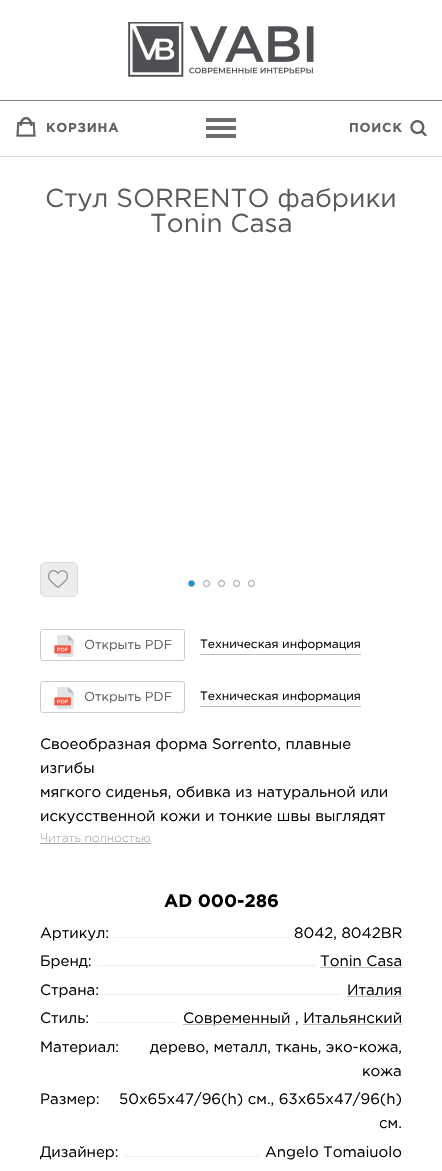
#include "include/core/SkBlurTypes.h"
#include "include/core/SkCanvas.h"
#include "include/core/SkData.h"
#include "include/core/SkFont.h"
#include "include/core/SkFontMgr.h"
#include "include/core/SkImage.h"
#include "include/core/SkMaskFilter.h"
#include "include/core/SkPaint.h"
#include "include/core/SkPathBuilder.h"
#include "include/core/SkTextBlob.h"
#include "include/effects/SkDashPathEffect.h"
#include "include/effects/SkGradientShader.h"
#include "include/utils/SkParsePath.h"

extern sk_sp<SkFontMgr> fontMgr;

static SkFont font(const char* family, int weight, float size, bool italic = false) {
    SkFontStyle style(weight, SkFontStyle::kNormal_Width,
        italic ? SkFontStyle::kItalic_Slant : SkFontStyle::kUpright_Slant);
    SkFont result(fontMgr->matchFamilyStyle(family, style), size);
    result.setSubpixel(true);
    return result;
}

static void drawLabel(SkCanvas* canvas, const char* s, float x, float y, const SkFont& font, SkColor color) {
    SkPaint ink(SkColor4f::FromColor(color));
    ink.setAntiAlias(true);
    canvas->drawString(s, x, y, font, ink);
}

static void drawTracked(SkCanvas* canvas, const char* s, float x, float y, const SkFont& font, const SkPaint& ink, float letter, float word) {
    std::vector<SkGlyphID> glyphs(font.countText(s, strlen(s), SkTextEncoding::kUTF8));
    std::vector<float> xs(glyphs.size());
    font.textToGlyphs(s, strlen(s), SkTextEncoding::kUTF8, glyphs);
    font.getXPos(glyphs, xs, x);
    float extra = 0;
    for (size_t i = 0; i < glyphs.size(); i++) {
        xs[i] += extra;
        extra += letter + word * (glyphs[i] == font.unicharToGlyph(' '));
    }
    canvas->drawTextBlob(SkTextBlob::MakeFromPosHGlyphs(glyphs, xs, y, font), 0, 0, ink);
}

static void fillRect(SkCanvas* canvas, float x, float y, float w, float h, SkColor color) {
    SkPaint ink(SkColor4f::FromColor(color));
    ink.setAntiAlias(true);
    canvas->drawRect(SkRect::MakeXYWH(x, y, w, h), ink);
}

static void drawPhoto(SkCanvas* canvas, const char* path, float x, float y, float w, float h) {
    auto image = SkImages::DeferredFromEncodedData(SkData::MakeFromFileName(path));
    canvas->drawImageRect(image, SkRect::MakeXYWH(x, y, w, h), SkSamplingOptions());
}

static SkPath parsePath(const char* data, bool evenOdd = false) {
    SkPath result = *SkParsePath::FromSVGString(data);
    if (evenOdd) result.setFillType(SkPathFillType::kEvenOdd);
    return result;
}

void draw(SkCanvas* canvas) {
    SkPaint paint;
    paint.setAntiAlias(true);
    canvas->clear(0xFFFFFFFF);
    drawPhoto(canvas, "assets/img1.png", 128, 22, 186, 55);
    fillRect(canvas, 0, 100, 442, 1, 0xFF7D7D7D);
    drawPhoto(canvas, "assets/img2.png", 16, 117, 20, 20);
    SkFont font1 = font("Gotham", 700, 13);
    paint.setColor(0xFF5F6062);
    drawTracked(canvas, "КОРЗИНА", 46, 132, font1, paint, 0.75f, 0);
    fillRect(canvas, 206, 118, 30, 4, 0xFF6D6D6D);
    fillRect(canvas, 206, 126, 30, 4, 0xFF6D6D6D);
    fillRect(canvas, 206, 134, 30, 4, 0xFF6D6D6D);
    drawPhoto(canvas, "assets/img3.png", 410, 120, 17, 16);
    drawTracked(canvas, "ПОИСК", 349, 132, font1, paint, 0.75f, 0);
    fillRect(canvas, 0, 156, 442, 1, 0xFFD8D8D8);
    SkFont font2 = font("Gotham", 400, 26);
    drawLabel(canvas, "Стул SORRENTO фабрики", 45, 207, font2, 0xFF58595B);
    drawLabel(canvas, "Tonin Casa", 150, 232, font2, 0xFF58595B);
    paint.setColor(0xFFEDEDED);
    canvas->drawRoundRect(SkRect::MakeXYWH(40.5f, 562.5f, 37, 34), 4.5f, 4.5f, paint);
    paint.setStroke(true);
    paint.setStrokeWidth(1);
    paint.setColor(0xFFDDDDDD);
    canvas->drawRoundRect(SkRect::MakeXYWH(40.5f, 562.5f, 37, 34), 4.5f, 4.5f, paint);
    drawPhoto(canvas, "assets/img4.png", 48, 570, 20, 18);
    paint.setStroke(false);
    paint.setColor(0xFF0095F6);
    canvas->drawCircle(191.5f, 583.5f, 3, paint);
    paint.setStroke(true);
    paint.setColor(0xFF929292);
    canvas->drawCircle(191.5f, 583.5f, 3, paint);
    canvas->drawCircle(206.5f, 583.5f, 3, paint);
    canvas->drawCircle(221.5f, 583.5f, 3, paint);
    canvas->drawCircle(236.5f, 583.5f, 3, paint);
    canvas->drawCircle(251.5f, 583.5f, 3, paint);
    paint.setColor(0xFFCCCCCC);
    canvas->drawRoundRect(SkRect::MakeXYWH(40.5f, 629.5f, 144, 31), 2.5f, 2.5f, paint);
    drawPhoto(canvas, "assets/img5.png", 54, 635, 20, 22);
    SkFont font3 = font("Gotham", 400, 13);
    drawLabel(canvas, "Открыть PDF", 84, 649, font3, 0xFF5F6062);
    SkFont font4 = font("Gotham", 400, 12);
    drawLabel(canvas, "Техническая информация", 200, 648, font4, 0xFF000000);
    fillRect(canvas, 200, 654, 161, 1, 0xFFBFBFBF);
    canvas->drawRoundRect(SkRect::MakeXYWH(40.5f, 681.5f, 144, 31), 2.5f, 2.5f, paint);
    drawPhoto(canvas, "assets/img5.png", 54, 687, 20, 22);
    drawLabel(canvas, "Открыть PDF", 84, 701, font3, 0xFF5F6062);
    drawLabel(canvas, "Техническая информация", 200, 700, font4, 0xFF000000);
    fillRect(canvas, 200, 706, 161, 1, 0xFFBFBFBF);
    SkFont font5 = font("Gotham", 400, 15);
    drawLabel(canvas, "Своеобразная форма Sorrento, плавные", 40, 749, font5, 0xFF000000);
    drawLabel(canvas, "изгибы", 40, 773, font5, 0xFF000000);
    drawLabel(canvas, "мягкого сиденья, обивка из натуральной или", 40, 797, font5, 0xFF000000);
    drawLabel(canvas, "искусственной кожи и тонкие швы выглядят", 40, 821, font5, 0xFF000000);
    SkFont font6 = font("Gotham", 300, 12);
    drawLabel(canvas, "Читать полностью", 40, 842, font6, 0xFFA9A7A7);
    fillRect(canvas, 40, 843, 111, 1, 0xFFA9A7A7);
    SkFont font7 = font("Gotham", 700, 18);
    drawLabel(canvas, "AD 000-286", 164, 907, font7, 0xFF000000);
    paint.setColor(0xFFDEDEDE);
    paint.setPathEffect(SkDashPathEffect::Make({{1, 1}}, 0));
    canvas->drawPath(parsePath("M40 937.5H402"), paint);
    paint.setPathEffect(nullptr);
    fillRect(canvas, 40, 937, 73, 1, 0xFFFFFFFF);
    drawLabel(canvas, "Артикул:", 40, 938, font5, 0xFF000000);
    fillRect(canvas, 290, 937, 111, 1, 0xFFFFFFFF);
    drawLabel(canvas, "8042, 8042BR", 294, 938, font5, 0xFF000000);
    paint.setPathEffect(SkDashPathEffect::Make({{1, 1}}, 0));
    canvas->drawPath(parsePath("M40 965.5H402"), paint);
    paint.setPathEffect(nullptr);
    fillRect(canvas, 40, 965, 57, 1, 0xFFFFFFFF);
    drawLabel(canvas, "Бренд:", 40, 966, font5, 0xFF000000);
    fillRect(canvas, 316, 965, 85, 1, 0xFFFFFFFF);
    drawLabel(canvas, "Tonin Casa", 320, 966, font5, 0xFF000000);
    fillRect(canvas, 320, 967, 82, 1, 0xFFBFBFBF);
    paint.setPathEffect(SkDashPathEffect::Make({{1, 1}}, 0));
    canvas->drawPath(parsePath("M40 994.5H402"), paint);
    paint.setPathEffect(nullptr);
    fillRect(canvas, 40, 994, 63, 1, 0xFFFFFFFF);
    drawLabel(canvas, "Страна:", 40, 995, font5, 0xFF000000);
    fillRect(canvas, 342, 994, 59, 1, 0xFFFFFFFF);
    drawLabel(canvas, "Италия", 347, 995, font5, 0xFF000000);
    fillRect(canvas, 347, 996, 55, 1, 0xFFBFBFBF);
    paint.setPathEffect(SkDashPathEffect::Make({{1, 1}}, 0));
    canvas->drawPath(parsePath("M40 1022.5H402"), paint);
    paint.setPathEffect(nullptr);
    fillRect(canvas, 40, 1022, 53, 1, 0xFFFFFFFF);
    drawLabel(canvas, "Стиль:", 40, 1023, font5, 0xFF000000);
    fillRect(canvas, 178, 1022, 223, 1, 0xFFFFFFFF);
    drawLabel(canvas, "Современный", 183, 1023, font5, 0xFF000000);
    fillRect(canvas, 183, 1024, 107, 1, 0xFFBFBFBF);
    drawLabel(canvas, ", Итальянский", 295, 1023, font5, 0xFF000000);
    fillRect(canvas, 303, 1024, 99, 1, 0xFFBFBFBF);
    drawLabel(canvas, "Материал:", 40, 1052, font5, 0xFF000000);
    drawLabel(canvas, "дерево, металл, ткань, эко-кожа,", 150, 1052, font5, 0xFF000000);
    drawLabel(canvas, "кожа", 362, 1076, font5, 0xFF000000);
    drawLabel(canvas, "Размер:", 40, 1104, font5, 0xFF000000);
    drawLabel(canvas, "50x65x47/96(h) см., 63x65x47/96(h)", 119, 1104, font5, 0xFF000000);
    drawLabel(canvas, "см.", 379, 1128, font5, 0xFF000000);
    paint.setPathEffect(SkDashPathEffect::Make({{1, 1}}, 0));
    canvas->drawPath(parsePath("M40 1156.5H402"), paint);
    paint.setPathEffect(nullptr);
    fillRect(canvas, 40, 1156, 83, 1, 0xFFFFFFFF);
    drawLabel(canvas, "Дизайнер:", 40, 1157, font5, 0xFF000000);
    fillRect(canvas, 260, 1156, 141, 1, 0xFFFFFFFF);
    drawLabel(canvas, "Angelo Tomaiuolo", 265, 1157, font5, 0xFF000000);
}
